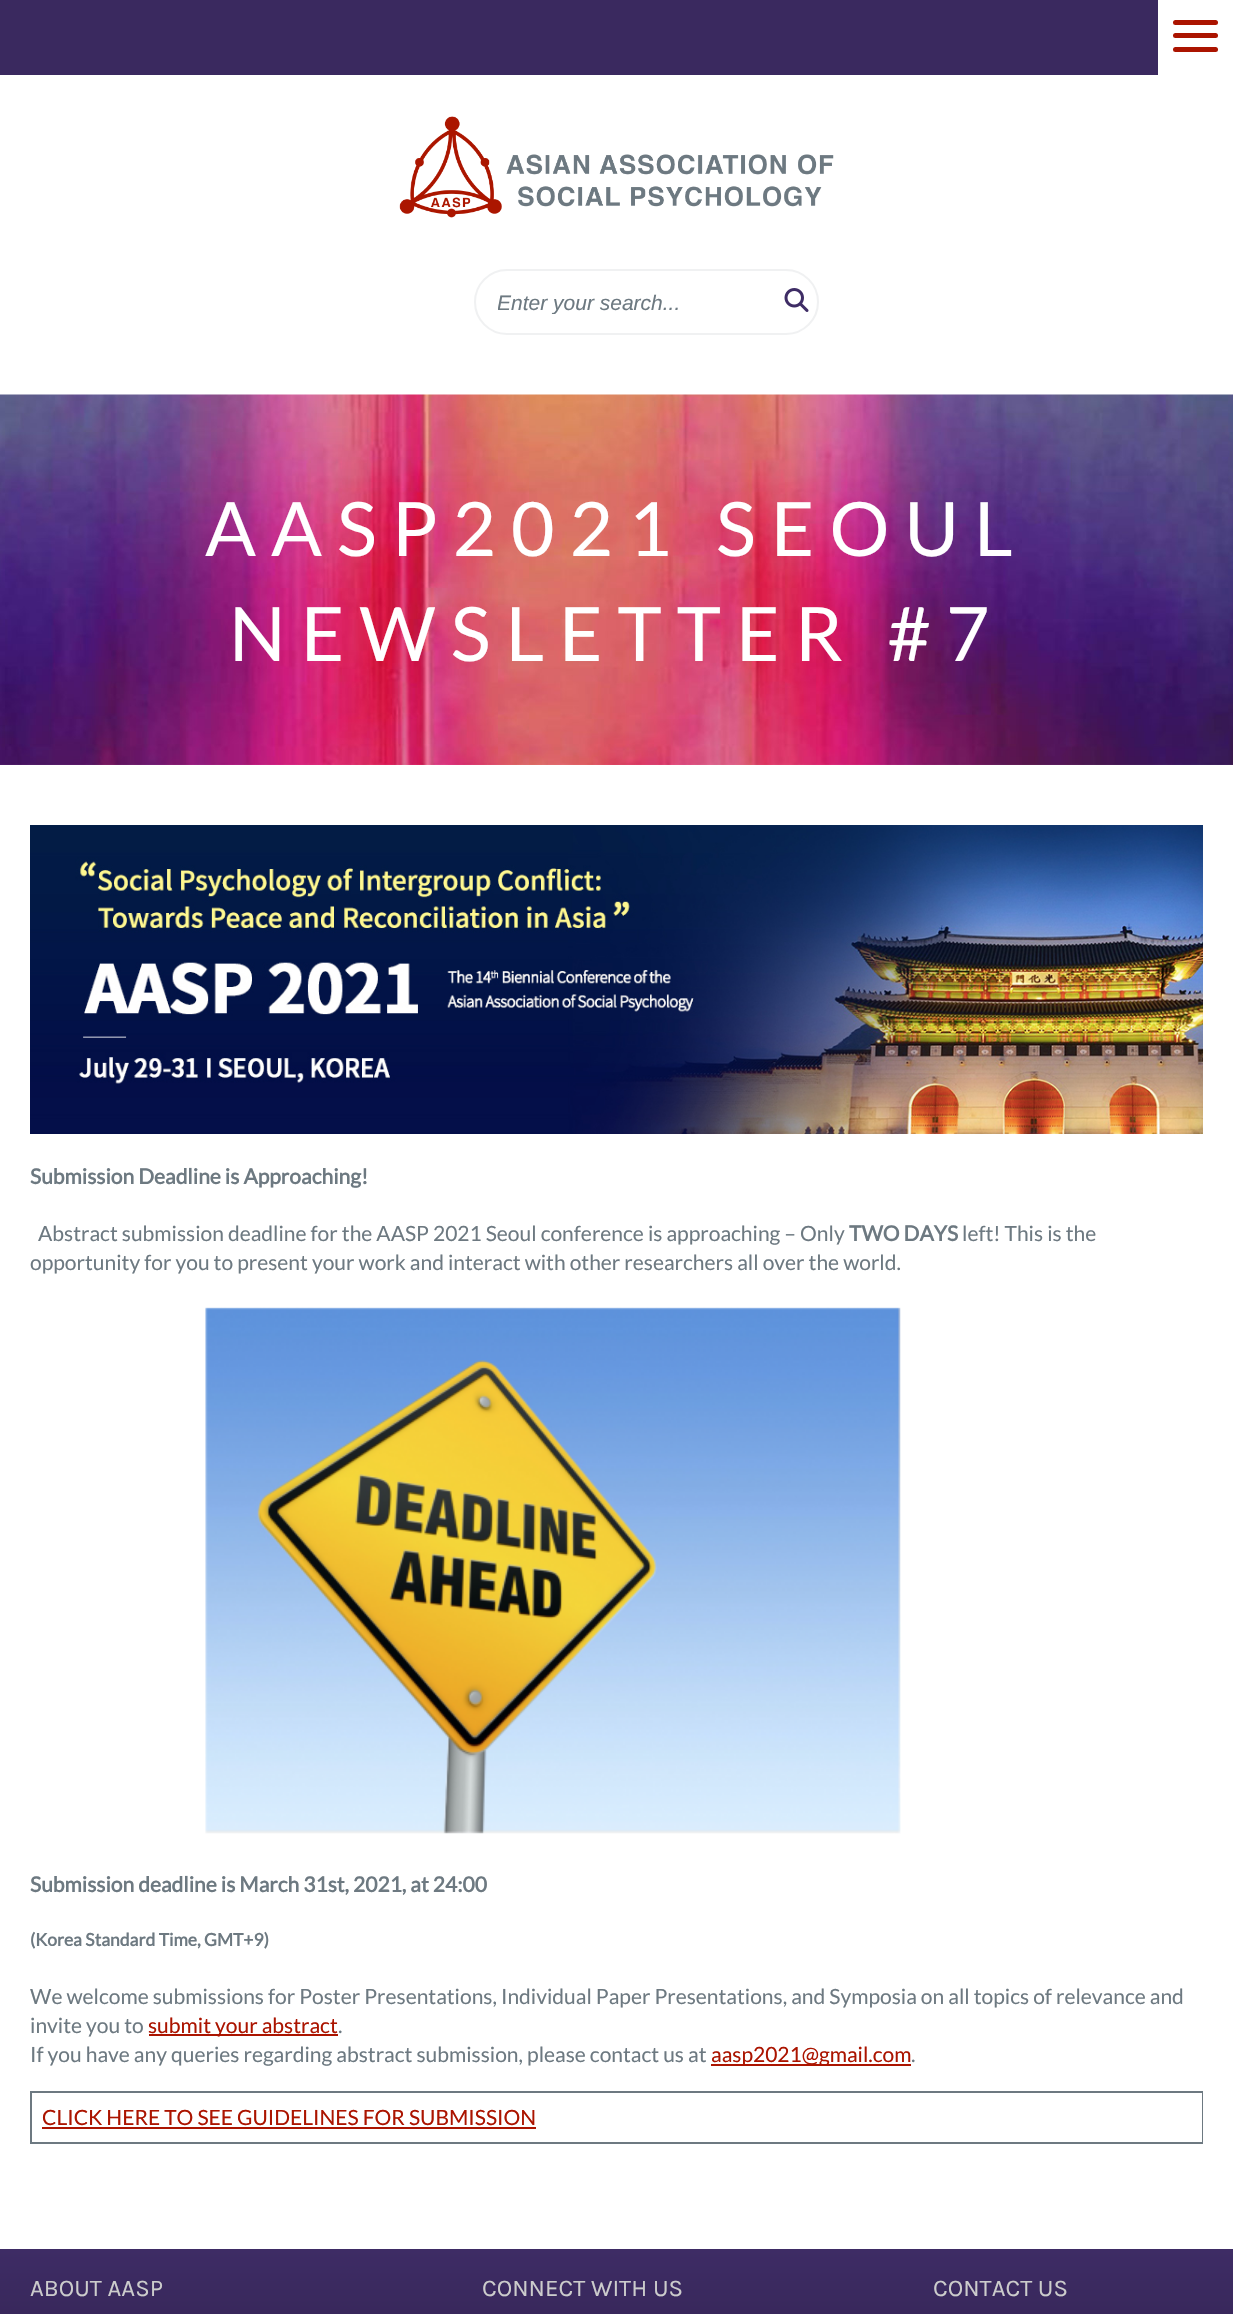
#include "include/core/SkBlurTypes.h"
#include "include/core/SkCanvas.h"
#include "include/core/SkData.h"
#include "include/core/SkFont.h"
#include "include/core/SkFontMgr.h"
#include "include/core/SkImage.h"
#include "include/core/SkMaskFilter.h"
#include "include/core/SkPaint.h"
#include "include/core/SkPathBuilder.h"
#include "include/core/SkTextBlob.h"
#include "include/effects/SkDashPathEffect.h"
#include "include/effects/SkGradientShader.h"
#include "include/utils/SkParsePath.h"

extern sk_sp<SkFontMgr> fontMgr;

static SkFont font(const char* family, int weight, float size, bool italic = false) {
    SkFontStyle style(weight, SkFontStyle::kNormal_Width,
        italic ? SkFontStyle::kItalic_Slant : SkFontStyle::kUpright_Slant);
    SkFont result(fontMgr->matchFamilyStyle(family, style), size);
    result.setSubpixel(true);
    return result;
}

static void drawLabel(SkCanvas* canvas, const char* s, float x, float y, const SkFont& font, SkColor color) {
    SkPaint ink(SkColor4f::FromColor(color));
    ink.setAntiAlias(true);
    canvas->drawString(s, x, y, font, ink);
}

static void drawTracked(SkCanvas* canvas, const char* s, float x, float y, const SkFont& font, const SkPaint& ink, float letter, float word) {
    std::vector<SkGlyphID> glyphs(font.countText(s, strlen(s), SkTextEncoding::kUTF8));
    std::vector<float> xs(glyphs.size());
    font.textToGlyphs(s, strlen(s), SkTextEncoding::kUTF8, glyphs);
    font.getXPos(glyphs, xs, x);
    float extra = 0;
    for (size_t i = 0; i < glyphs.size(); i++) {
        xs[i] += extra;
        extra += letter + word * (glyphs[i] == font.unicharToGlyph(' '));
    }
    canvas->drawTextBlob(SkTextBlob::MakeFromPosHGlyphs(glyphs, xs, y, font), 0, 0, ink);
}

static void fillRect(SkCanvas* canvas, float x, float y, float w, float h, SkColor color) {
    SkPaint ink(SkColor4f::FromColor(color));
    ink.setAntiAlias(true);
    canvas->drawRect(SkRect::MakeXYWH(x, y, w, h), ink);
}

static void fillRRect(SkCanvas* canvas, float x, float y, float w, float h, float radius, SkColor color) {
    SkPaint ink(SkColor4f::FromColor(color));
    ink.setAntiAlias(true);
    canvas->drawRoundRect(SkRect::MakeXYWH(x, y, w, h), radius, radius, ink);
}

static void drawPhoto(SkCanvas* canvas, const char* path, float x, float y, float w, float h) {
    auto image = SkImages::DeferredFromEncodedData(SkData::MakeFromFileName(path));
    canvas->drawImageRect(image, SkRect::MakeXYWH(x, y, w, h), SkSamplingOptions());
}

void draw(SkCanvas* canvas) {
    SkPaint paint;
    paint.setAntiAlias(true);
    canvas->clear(0xFFFFFFFF);
    fillRect(canvas, 0, 0, 1158, 75, 0xFF3A295F);
    fillRRect(canvas, 1173, 20, 45, 5, 2.5f, 0xFFAB1400);
    fillRRect(canvas, 1173, 33, 45, 5, 2.5f, 0xFFAB1400);
    fillRRect(canvas, 1173, 47, 45, 5, 2.5f, 0xFFAB1400);
    drawPhoto(canvas, "assets/img1.png", 399, 116, 435, 102);
    paint.setStroke(true);
    paint.setStrokeWidth(2);
    paint.setColor(0xFFF0F1F2);
    canvas->drawRoundRect(SkRect::MakeXYWH(475, 270, 343, 64), 32, 32, paint);
    canvas->save();
    canvas->clipRect(SkRect::MakeXYWH(498, 290, 266, 24));
    SkFont font1 = font("Liberation Sans", 400, 21, true);
    drawLabel(canvas, "Enter your search...", 497, 310, font1, 0xFF6D7981);
    canvas->restore();
    drawPhoto(canvas, "assets/img2.png", 784, 288, 25, 24);
    drawPhoto(canvas, "assets/img3.png", 0, 394, 1233, 371);
    SkFont font2 = font("Lato", 400, 75);
    paint.setStroke(false);
    paint.setColor(0xFFFFFFFF);
    drawTracked(canvas, "AASP2021 SEOUL", 205, 556, font2, paint, 15, 0);
    drawTracked(canvas, "NEWSLETTER #7", 229, 661, font2, paint, 15, 0);
    drawPhoto(canvas, "assets/img4.png", 30, 825, 1173, 309);
    SkFont font3 = font("Lato", 700, 21);
    drawLabel(canvas, "Submission Deadline is Approaching!", 30, 1184, font3, 0xFF6D7981);
    SkFont font4 = font("Lato", 400, 21);
    drawLabel(canvas, "Abstract submission deadline for the AASP 2021 Seoul conference is approaching – Only", 38, 1241, font4, 0xFF6D7981);
    drawLabel(canvas, "TWO DAYS", 849, 1241, font3, 0xFF6D7981);
    drawLabel(canvas, "left! This is the", 962, 1241, font4, 0xFF6D7981);
    drawLabel(canvas, "opportunity for you to present your work and interact with other researchers all over the world.", 30, 1270, font4, 0xFF6D7981);
    drawPhoto(canvas, "assets/img5.png", 205, 1307, 696, 527);
    drawLabel(canvas, "Submission deadline is March 31st, 2021, at 24:00", 30, 1892, font3, 0xFF6D7981);
    SkFont font5 = font("Lato", 700, 17.5f);
    drawLabel(canvas, "(Korea Standard Time, GMT+9)", 30, 1946, font5, 0xFF6D7981);
    drawLabel(canvas, "We welcome submissions for Poster Presentations, Individual Paper Presentations, and Symposia on all topics of relevance and", 30, 2004, font4, 0xFF6D7981);
    drawLabel(canvas, "invite you to", 30, 2033, font4, 0xFF6D7981);
    fillRect(canvas, 149, 2034, 189, 2, 0xFFAB1400);
    drawLabel(canvas, "submit your abstract", 148, 2033, font4, 0xFFAB1400);
    drawLabel(canvas, ".", 338, 2033, font4, 0xFF6D7981);
    drawLabel(canvas, "If you have any queries regarding abstract submission, please contact us at", 30, 2062, font4, 0xFF6D7981);
    fillRect(canvas, 711, 2064, 200, 2, 0xFFAB1400);
    drawLabel(canvas, "aasp2021@gmail.com", 711, 2062, font4, 0xFFAB1400);
    drawLabel(canvas, ".", 911, 2062, font4, 0xFF6D7981);
    fillRect(canvas, 30, 2091, 1173, 2, 0xFF6D7981);
    fillRect(canvas, 1202, 2091, 1, 53, 0xFF6D7981);
    fillRect(canvas, 30, 2142, 1173, 2, 0xFF6D7981);
    fillRect(canvas, 30, 2091, 2, 53, 0xFF6D7981);
    drawLabel(canvas, "CLICK HERE TO SEE GUIDELINES FOR SUBMISSION", 42, 2125, font4, 0xFFAB1400);
    fillRect(canvas, 42, 2127, 494, 2, 0xFFAB1400);
    {
        const SkColor colors[] = {0xFF000000, 0xFF3E2C65};
        const float stops[] = {0, 1};
        const SkPoint ends[] = {{617, 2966}, {617, 2249}};
        paint.setShader(SkGradientShader::MakeLinear(ends, colors, stops, 2, SkTileMode::kClamp));
        paint.setAlpha(255);
    }
    canvas->drawRect(SkRect::MakeXYWH(0, 2249, 1233, 65), paint);
    SkFont font6 = font("Karla", 400, 24);
    drawLabel(canvas, "ABOUT AASP", 30, 2296, font6, 0xFFCCCCCC);
    drawLabel(canvas, "CONNECT WITH US", 482, 2296, font6, 0xFFCCCCCC);
    drawLabel(canvas, "CONTACT US", 933, 2296, font6, 0xFFCCCCCC);
}
